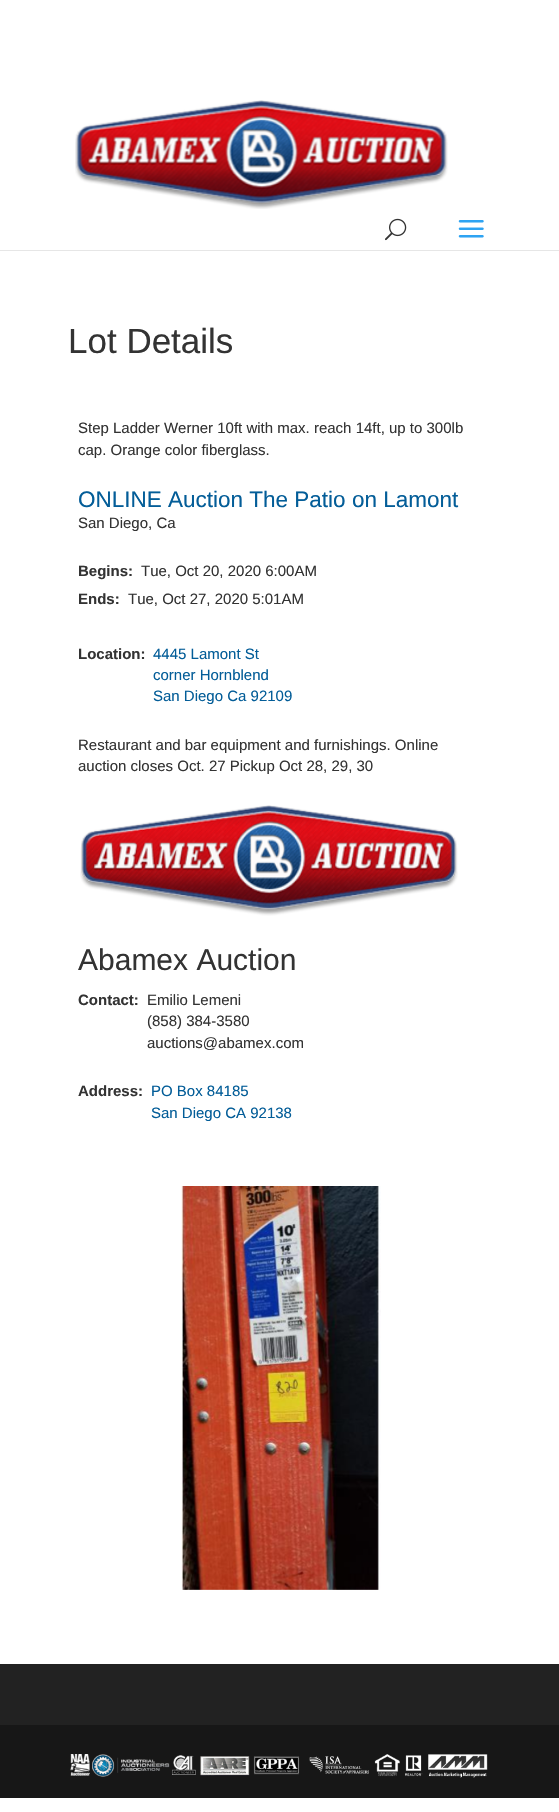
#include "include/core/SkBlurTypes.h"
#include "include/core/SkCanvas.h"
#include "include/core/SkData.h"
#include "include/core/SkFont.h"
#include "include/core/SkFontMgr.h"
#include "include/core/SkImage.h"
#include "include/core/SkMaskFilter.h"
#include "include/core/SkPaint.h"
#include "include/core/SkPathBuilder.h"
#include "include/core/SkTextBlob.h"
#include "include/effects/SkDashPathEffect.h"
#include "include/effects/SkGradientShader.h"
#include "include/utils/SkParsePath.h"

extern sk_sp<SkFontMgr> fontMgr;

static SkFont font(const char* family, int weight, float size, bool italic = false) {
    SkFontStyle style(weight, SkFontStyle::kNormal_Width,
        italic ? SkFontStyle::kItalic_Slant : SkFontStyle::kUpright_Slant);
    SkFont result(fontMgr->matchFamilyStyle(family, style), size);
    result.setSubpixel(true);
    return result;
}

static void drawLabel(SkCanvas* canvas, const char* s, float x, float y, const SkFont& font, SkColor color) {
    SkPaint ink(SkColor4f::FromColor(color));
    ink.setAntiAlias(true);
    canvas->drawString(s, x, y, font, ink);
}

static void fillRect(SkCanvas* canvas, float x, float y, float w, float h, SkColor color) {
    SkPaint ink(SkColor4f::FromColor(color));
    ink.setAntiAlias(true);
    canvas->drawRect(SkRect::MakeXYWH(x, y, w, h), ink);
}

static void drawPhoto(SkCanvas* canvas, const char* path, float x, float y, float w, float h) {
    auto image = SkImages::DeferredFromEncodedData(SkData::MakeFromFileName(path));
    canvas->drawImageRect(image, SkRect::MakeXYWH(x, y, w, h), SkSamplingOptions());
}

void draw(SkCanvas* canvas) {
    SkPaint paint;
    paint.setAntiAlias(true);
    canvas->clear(0xFFFFFFFF);
    fillRect(canvas, 0, 250, 559, 1, 0xFFE6E6E6);
    drawPhoto(canvas, "assets/img1.png", 75, 100, 373, 109);
    drawPhoto(canvas, "assets/img2.png", 385, 218, 22, 23);
    drawPhoto(canvas, "assets/img3.png", 458, 220, 26, 18);
    SkFont font1 = font("Liberation Sans", 400, 35);
    drawLabel(canvas, "Lot Details", 68, 353, font1, 0xFF333333);
    SkFont font2 = font("Liberation Sans", 400, 15);
    drawLabel(canvas, "Step Ladder Werner 10ft with max. reach 14ft, up to 300lb", 78, 433, font2, 0xFF333333);
    drawLabel(canvas, "cap. Orange color fiberglass.", 78, 455, font2, 0xFF333333);
    SkFont font3 = font("Liberation Sans", 400, 22.5f);
    drawLabel(canvas, "ONLINE Auction The Patio on Lamont", 78, 507, font3, 0xFF035D98);
    drawLabel(canvas, "San Diego, Ca", 78, 528, font2, 0xFF333333);
    SkFont font4 = font("Liberation Sans", 700, 15);
    drawLabel(canvas, "Begins:", 78, 576, font4, 0xFF333333);
    drawLabel(canvas, "Tue, Oct 20, 2020 6:00AM", 141, 576, font2, 0xFF333333);
    drawLabel(canvas, "Ends:", 78, 604, font4, 0xFF333333);
    drawLabel(canvas, "Tue, Oct 27, 2020 5:01AM", 128, 604, font2, 0xFF333333);
    drawLabel(canvas, "Location:", 78, 659, font4, 0xFF333333);
    drawLabel(canvas, "4445 Lamont St", 153, 659, font2, 0xFF035D98);
    drawLabel(canvas, "corner Hornblend", 153, 680, font2, 0xFF035D98);
    drawLabel(canvas, "San Diego Ca 92109", 153, 701, font2, 0xFF035D98);
    drawLabel(canvas, "Restaurant and bar equipment and furnishings. Online", 78, 750, font2, 0xFF333333);
    drawLabel(canvas, "auction closes Oct. 27 Pickup Oct 28, 29, 30", 78, 771, font2, 0xFF333333);
    drawPhoto(canvas, "assets/img4.png", 80, 805, 378, 111);
    SkFont font5 = font("Liberation Sans", 400, 30);
    drawLabel(canvas, "Abamex Auction", 78, 970, font5, 0xFF333333);
    drawLabel(canvas, "Contact:", 78, 1005, font4, 0xFF333333);
    drawLabel(canvas, "Emilio Lemeni", 147, 1005, font2, 0xFF333333);
    drawLabel(canvas, "(858) 384-3580", 147, 1026, font2, 0xFF333333);
    drawLabel(canvas, "auctions@abamex.com", 147, 1048, font2, 0xFF333333);
    drawLabel(canvas, "Address:", 78, 1096, font4, 0xFF333333);
    drawLabel(canvas, "PO Box 84185", 151, 1096, font2, 0xFF035D98);
    drawLabel(canvas, "San Diego CA 92138", 151, 1118, font2, 0xFF035D98);
    drawPhoto(canvas, "assets/img5.png", 181, 1186, 200, 404);
    fillRect(canvas, 0, 1664, 559, 61, 0xFF222222);
    fillRect(canvas, 0, 1725, 559, 73, 0xFF171717);
    drawPhoto(canvas, "assets/img6.png", 70, 1754, 418, 24);
}
